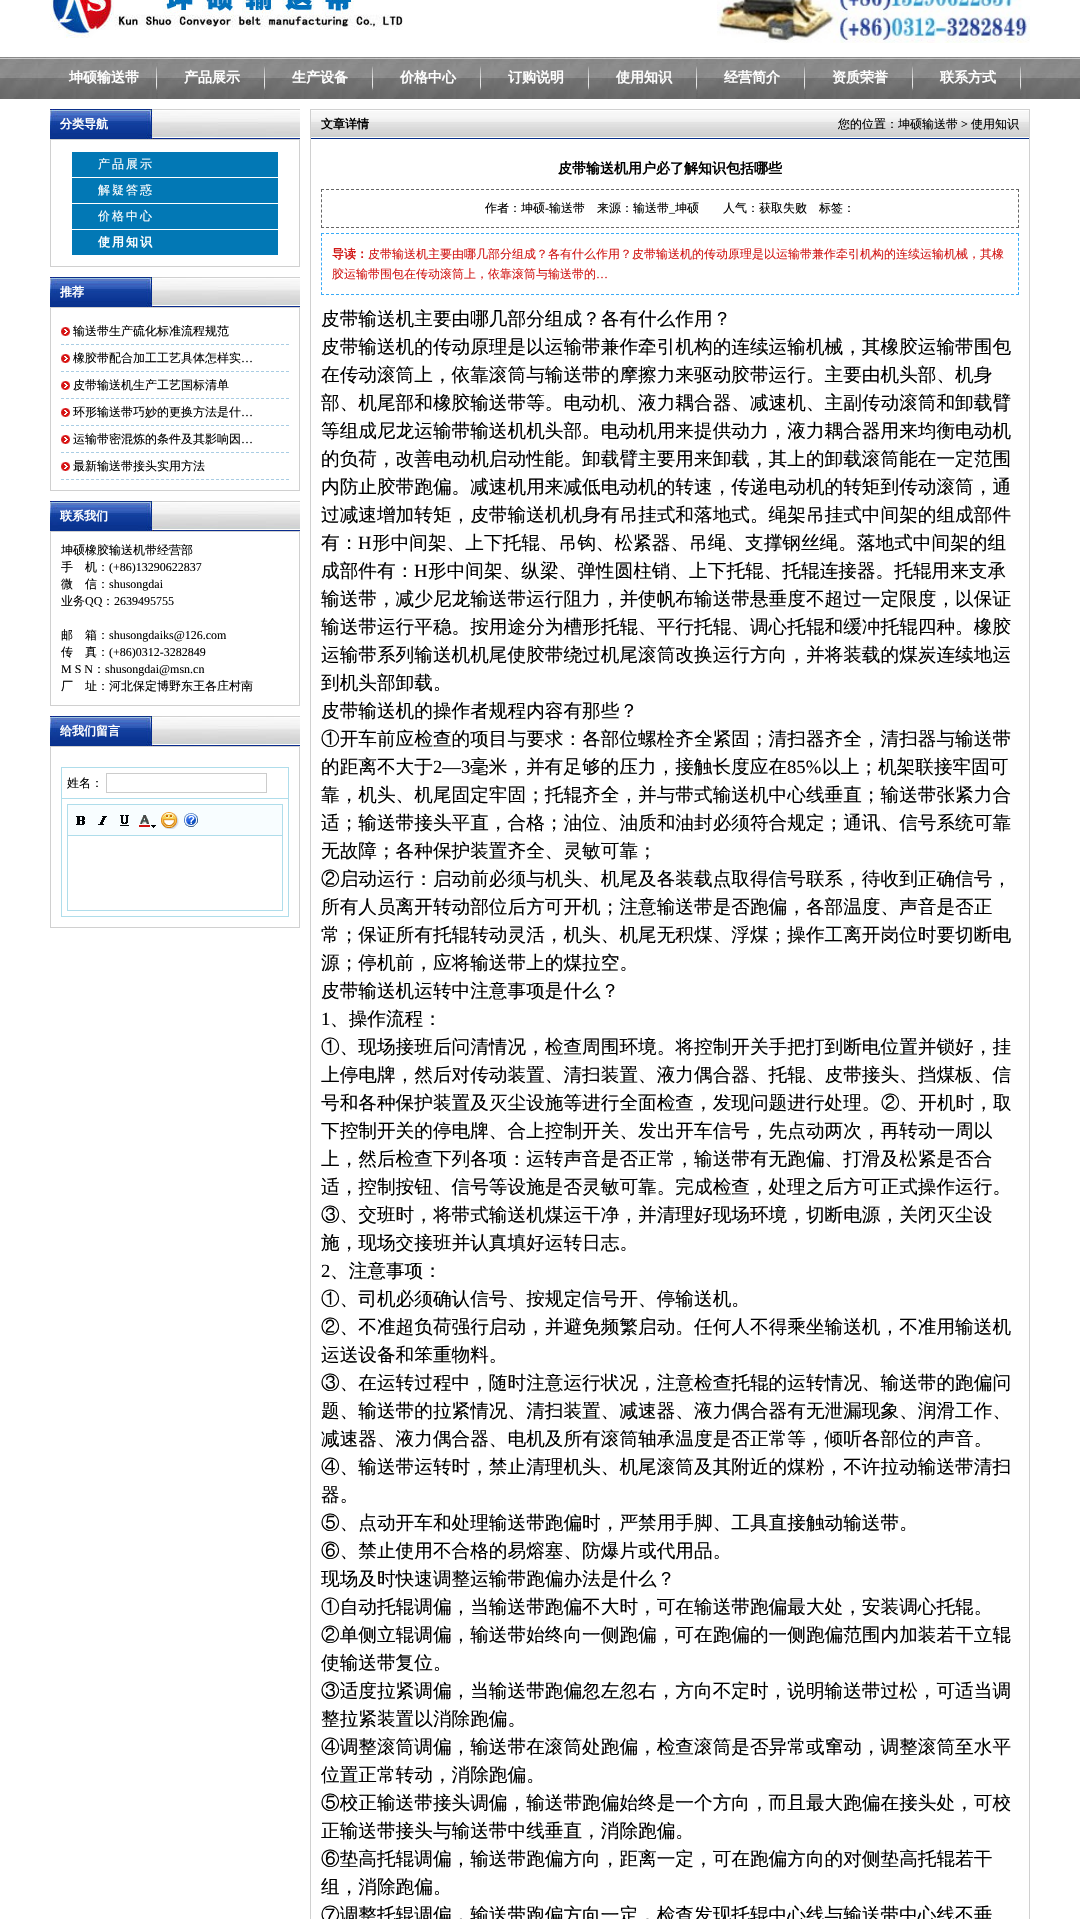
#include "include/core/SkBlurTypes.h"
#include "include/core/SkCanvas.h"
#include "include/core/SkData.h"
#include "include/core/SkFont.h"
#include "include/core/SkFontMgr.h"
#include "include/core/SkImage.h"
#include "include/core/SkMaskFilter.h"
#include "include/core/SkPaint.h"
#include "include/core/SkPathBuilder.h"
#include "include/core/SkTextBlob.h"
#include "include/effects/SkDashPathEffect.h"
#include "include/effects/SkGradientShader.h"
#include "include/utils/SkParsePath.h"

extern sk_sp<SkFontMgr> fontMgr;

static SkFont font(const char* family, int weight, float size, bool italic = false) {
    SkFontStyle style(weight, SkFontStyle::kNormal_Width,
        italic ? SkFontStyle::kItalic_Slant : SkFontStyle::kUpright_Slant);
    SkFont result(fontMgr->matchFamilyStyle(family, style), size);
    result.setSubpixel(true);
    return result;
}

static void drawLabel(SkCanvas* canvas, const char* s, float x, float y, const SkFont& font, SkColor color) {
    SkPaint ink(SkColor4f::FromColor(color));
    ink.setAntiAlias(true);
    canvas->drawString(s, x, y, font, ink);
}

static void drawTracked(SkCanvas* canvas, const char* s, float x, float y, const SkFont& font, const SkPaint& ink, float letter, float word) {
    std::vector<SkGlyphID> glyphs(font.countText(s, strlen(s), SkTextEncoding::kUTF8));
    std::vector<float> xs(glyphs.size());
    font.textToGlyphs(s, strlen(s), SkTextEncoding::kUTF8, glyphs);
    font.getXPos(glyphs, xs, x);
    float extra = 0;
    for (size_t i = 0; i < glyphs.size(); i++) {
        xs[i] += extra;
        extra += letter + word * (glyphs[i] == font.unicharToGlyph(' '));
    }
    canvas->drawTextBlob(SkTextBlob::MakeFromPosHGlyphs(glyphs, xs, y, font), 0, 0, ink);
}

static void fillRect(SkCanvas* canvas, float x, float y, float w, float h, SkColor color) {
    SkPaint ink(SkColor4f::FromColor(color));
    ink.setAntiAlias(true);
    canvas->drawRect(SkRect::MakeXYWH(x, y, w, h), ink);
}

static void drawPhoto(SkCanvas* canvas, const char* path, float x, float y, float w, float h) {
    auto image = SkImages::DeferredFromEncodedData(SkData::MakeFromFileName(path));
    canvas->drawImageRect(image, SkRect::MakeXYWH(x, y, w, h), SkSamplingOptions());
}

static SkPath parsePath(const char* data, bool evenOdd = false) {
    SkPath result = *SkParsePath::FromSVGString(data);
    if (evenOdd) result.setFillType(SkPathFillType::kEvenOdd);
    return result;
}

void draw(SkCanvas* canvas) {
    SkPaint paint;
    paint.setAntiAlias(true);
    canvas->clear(0xFFFFFFFF);
    drawPhoto(canvas, "assets/img1.png", 50, 0, 353, 38);
    drawPhoto(canvas, "assets/img2.png", 717, 0, 313, 43);
    drawPhoto(canvas, "assets/img3.png", 0, 57, 1080, 42);
    drawPhoto(canvas, "assets/img4.png", 156, 63, 2, 36);
    SkFont font1 = font("WenQuanYi Zen Hei", 700, 14);
    drawLabel(canvas, "坤硕输送带", 69, 82, font1, 0xFFFFFFFF);
    drawPhoto(canvas, "assets/img4.png", 264, 63, 2, 36);
    drawLabel(canvas, "产品展示", 184, 82, font1, 0xFFFFFFFF);
    drawPhoto(canvas, "assets/img5.png", 372, 66, 2, 25);
    drawLabel(canvas, "生产设备", 292, 82, font1, 0xFFFFFFFF);
    drawPhoto(canvas, "assets/img5.png", 480, 66, 2, 25);
    drawLabel(canvas, "价格中心", 400, 82, font1, 0xFFFFFFFF);
    drawPhoto(canvas, "assets/img5.png", 588, 66, 2, 25);
    drawLabel(canvas, "订购说明", 508, 82, font1, 0xFFFFFFFF);
    drawPhoto(canvas, "assets/img6.png", 696, 59, 2, 40);
    drawLabel(canvas, "使用知识", 616, 82, font1, 0xFFFFFFFF);
    drawPhoto(canvas, "assets/img7.png", 804, 62, 2, 37);
    drawLabel(canvas, "经营简介", 724, 82, font1, 0xFFFFFFFF);
    drawPhoto(canvas, "assets/img5.png", 912, 66, 2, 25);
    drawLabel(canvas, "资质荣誉", 832, 82, font1, 0xFFFFFFFF);
    drawPhoto(canvas, "assets/img8.png", 1020, 66, 2, 31);
    drawLabel(canvas, "联系方式", 940, 82, font1, 0xFFFFFFFF);
    drawPhoto(canvas, "assets/img9.png", 50, 109, 250, 30);
    SkFont font2 = font("WenQuanYi Zen Hei", 700, 12);
    drawLabel(canvas, "分类导航", 60, 128, font2, 0xFFFFFFFF);
    paint.setStroke(true);
    paint.setStrokeWidth(1);
    paint.setColor(0xFFD0D0D0);
    canvas->drawRect(SkRect::MakeXYWH(50.5f, 139.5f, 249, 127), paint);
    fillRect(canvas, 72, 152, 206, 25, 0xFF0278B5);
    SkFont font3 = font("WenQuanYi Zen Hei", 500, 12);
    paint.setStroke(false);
    paint.setColor(0xFFFFFFFF);
    drawTracked(canvas, "产品展示", 98, 168, font3, paint, 2, 0);
    fillRect(canvas, 72, 178, 206, 25, 0xFF0278B5);
    drawTracked(canvas, "解疑答惑", 98, 194, font3, paint, 2, 0);
    fillRect(canvas, 72, 204, 206, 25, 0xFF0278B5);
    drawTracked(canvas, "价格中心", 98, 220, font3, paint, 2, 0);
    fillRect(canvas, 72, 230, 206, 25, 0xFF0278B5);
    drawTracked(canvas, "使用知识", 98, 246, font2, paint, 2, 0);
    drawPhoto(canvas, "assets/img9.png", 50, 277, 250, 30);
    drawLabel(canvas, "推荐", 60, 296, font2, 0xFFFFFFFF);
    paint.setStroke(true);
    paint.setColor(0xFFD0D0D0);
    canvas->drawRect(SkRect::MakeXYWH(50.5f, 307.5f, 249, 183), paint);
    drawPhoto(canvas, "assets/img10.png", 61, 327, 9, 9);
    paint.setColor(0xFFA9CDE4);
    paint.setPathEffect(SkDashPathEffect::Make({{3, 2}}, 0));
    canvas->drawPath(parsePath("M61 344.5H289"), paint);
    paint.setPathEffect(nullptr);
    drawLabel(canvas, "输送带生产硫化标准流程规范", 73, 335, font3, 0xFF000000);
    drawPhoto(canvas, "assets/img10.png", 61, 354, 9, 9);
    paint.setPathEffect(SkDashPathEffect::Make({{3, 2}}, 0));
    canvas->drawPath(parsePath("M61 371.5H289"), paint);
    paint.setPathEffect(nullptr);
    drawLabel(canvas, "橡胶带配合加工工艺具体怎样实", 73, 362, font3, 0xFF000000);
    SkFont font4 = font("Liberation Serif", 400, 12);
    drawLabel(canvas, "…", 241, 362, font4, 0xFF000000);
    drawPhoto(canvas, "assets/img10.png", 61, 381, 9, 9);
    paint.setPathEffect(SkDashPathEffect::Make({{3, 2}}, 0));
    canvas->drawPath(parsePath("M61 398.5H289"), paint);
    paint.setPathEffect(nullptr);
    drawLabel(canvas, "皮带输送机生产工艺国标清单", 73, 389, font3, 0xFF000000);
    drawPhoto(canvas, "assets/img10.png", 61, 408, 9, 9);
    paint.setPathEffect(SkDashPathEffect::Make({{3, 2}}, 0));
    canvas->drawPath(parsePath("M61 425.5H289"), paint);
    paint.setPathEffect(nullptr);
    drawLabel(canvas, "环形输送带巧妙的更换方法是什", 73, 416, font3, 0xFF000000);
    drawLabel(canvas, "…", 241, 416, font4, 0xFF000000);
    drawPhoto(canvas, "assets/img10.png", 61, 435, 9, 9);
    paint.setPathEffect(SkDashPathEffect::Make({{3, 2}}, 0));
    canvas->drawPath(parsePath("M61 452.5H289"), paint);
    paint.setPathEffect(nullptr);
    drawLabel(canvas, "运输带密混炼的条件及其影响因", 73, 443, font3, 0xFF000000);
    drawLabel(canvas, "…", 241, 443, font4, 0xFF000000);
    drawPhoto(canvas, "assets/img10.png", 61, 462, 9, 9);
    paint.setPathEffect(SkDashPathEffect::Make({{3, 2}}, 0));
    canvas->drawPath(parsePath("M61 479.5H289"), paint);
    paint.setPathEffect(nullptr);
    drawLabel(canvas, "最新输送带接头实用方法", 73, 470, font3, 0xFF000000);
    drawPhoto(canvas, "assets/img9.png", 50, 501, 250, 30);
    drawLabel(canvas, "联系我们", 60, 520, font2, 0xFFFFFFFF);
    paint.setColor(0xFFD0D0D0);
    canvas->drawRect(SkRect::MakeXYWH(50.5f, 531.5f, 249, 174), paint);
    drawLabel(canvas, "坤硕橡胶输送机带经营部", 61, 554, font3, 0xFF000000);
    drawLabel(canvas, "手　机：", 61, 571, font3, 0xFF000000);
    drawLabel(canvas, "(+86)13290622837", 109, 571, font4, 0xFF000000);
    drawLabel(canvas, "微　信：", 61, 588, font3, 0xFF000000);
    drawLabel(canvas, "shusongdai", 109, 588, font4, 0xFF000000);
    drawLabel(canvas, "业务", 61, 605, font3, 0xFF000000);
    drawLabel(canvas, "QQ", 85, 605, font4, 0xFF000000);
    drawLabel(canvas, "：", 102, 605, font3, 0xFF000000);
    drawLabel(canvas, "2639495755", 114, 605, font4, 0xFF000000);
    drawLabel(canvas, "邮　箱：", 61, 639, font3, 0xFF000000);
    drawLabel(canvas, "shusongdaiks@126.com", 109, 639, font4, 0xFF000000);
    drawLabel(canvas, "传　真：", 61, 656, font3, 0xFF000000);
    drawLabel(canvas, "(+86)0312-3282849", 109, 656, font4, 0xFF000000);
    drawLabel(canvas, "M S N", 61, 673, font4, 0xFF000000);
    drawLabel(canvas, "：", 93, 673, font3, 0xFF000000);
    drawLabel(canvas, "shusongdai@msn.cn", 105, 673, font4, 0xFF000000);
    drawLabel(canvas, "厂　址：河北保定博野东王各庄村南", 61, 690, font3, 0xFF000000);
    drawPhoto(canvas, "assets/img9.png", 50, 716, 250, 30);
    drawLabel(canvas, "给我们留言", 60, 735, font2, 0xFFFFFFFF);
    canvas->drawRect(SkRect::MakeXYWH(50.5f, 746.5f, 249, 181), paint);
    fillRect(canvas, 61, 767, 228, 1, 0xFFAFDDEB);
    fillRect(canvas, 61, 798, 228, 1, 0xFFAFDDEB);
    fillRect(canvas, 288, 798, 1, 119, 0xFFAFDDEB);
    fillRect(canvas, 288, 767, 1, 32, 0xFFAFDDEB);
    fillRect(canvas, 61, 916, 228, 1, 0xFFAFDDEB);
    fillRect(canvas, 61, 798, 1, 119, 0xFFAFDDEB);
    fillRect(canvas, 61, 767, 1, 32, 0xFFAFDDEB);
    drawLabel(canvas, "姓名：", 67, 787, font3, 0xFF000000);
    paint.setColor(0xFFCCCCCC);
    canvas->drawRect(SkRect::MakeXYWH(106.5f, 773.5f, 160, 19), paint);
    paint.setColor(0xFFAFDDEB);
    canvas->drawRect(SkRect::MakeXYWH(67.5f, 804.5f, 215, 106), paint);
    fillRect(canvas, 68, 805, 214, 30, 0xFFF8FDFF);
    fillRect(canvas, 68, 835, 214, 1, 0xFFAFDDEB);
    drawPhoto(canvas, "assets/img11.png", 76, 816, 9, 9);
    drawPhoto(canvas, "assets/img12.png", 98, 816, 9, 9);
    drawPhoto(canvas, "assets/img13.png", 120, 815, 9, 11);
    drawPhoto(canvas, "assets/img14.png", 139, 815, 17, 13);
    drawPhoto(canvas, "assets/img15.png", 161, 812, 18, 17);
    drawPhoto(canvas, "assets/img16.png", 184, 813, 14, 14);
    drawPhoto(canvas, "assets/img17.png", 311, 109, 718, 30);
    fillRect(canvas, 1029, 109, 1, 1810, 0xFFD0D0D0);
    fillRect(canvas, 310, 109, 1, 1810, 0xFFD0D0D0);
    drawLabel(canvas, "文章详情", 321, 128, font2, 0xFF000000);
    drawLabel(canvas, "您的位置：坤硕输送带", 838, 128, font3, 0xFF000000);
    drawLabel(canvas, ">", 961, 128, font4, 0xFF000000);
    drawLabel(canvas, "使用知识", 971, 128, font3, 0xFF000000);
    drawLabel(canvas, "皮带输送机用户必了解知识包括哪些", 558, 173, font1, 0xFF000000);
    paint.setColor(0xFF666666);
    paint.setPathEffect(SkDashPathEffect::Make({{3, 2}}, 0));
    canvas->drawPath(parsePath("M321 189.5H1019"), paint);
    paint.setPathEffect(nullptr);
    paint.setPathEffect(SkDashPathEffect::Make({{3, 2.14f}}, 0));
    canvas->drawPath(parsePath("M1018.5 189V228"), paint);
    paint.setPathEffect(nullptr);
    paint.setPathEffect(SkDashPathEffect::Make({{3, 2}}, 0));
    canvas->drawPath(parsePath("M321 227.5H1019"), paint);
    paint.setPathEffect(nullptr);
    paint.setPathEffect(SkDashPathEffect::Make({{3, 2.14f}}, 0));
    canvas->drawPath(parsePath("M321.5 189V228"), paint);
    paint.setPathEffect(nullptr);
    drawLabel(canvas, "作者：坤硕", 485, 212, font3, 0xFF000000);
    drawLabel(canvas, "-", 545, 212, font4, 0xFF000000);
    drawLabel(canvas, "输送带　来源：输送带", 549, 212, font3, 0xFF000000);
    drawLabel(canvas, "_", 669, 212, font4, 0xFF000000);
    drawLabel(canvas, "坤硕　　人气：获取失败", 675, 212, font3, 0xFF000000);
    drawLabel(canvas, "标签：", 819, 212, font3, 0xFF000000);
    paint.setColor(0xFF3AABF7);
    paint.setPathEffect(SkDashPathEffect::Make({{3, 2}}, 0));
    canvas->drawPath(parsePath("M321 233.5H1019"), paint);
    paint.setPathEffect(nullptr);
    paint.setPathEffect(SkDashPathEffect::Make({{3, 1.92f}}, 0));
    canvas->drawPath(parsePath("M1018.5 233V295"), paint);
    paint.setPathEffect(nullptr);
    paint.setPathEffect(SkDashPathEffect::Make({{3, 2}}, 0));
    canvas->drawPath(parsePath("M321 294.5H1019"), paint);
    paint.setPathEffect(nullptr);
    paint.setPathEffect(SkDashPathEffect::Make({{3, 1.92f}}, 0));
    canvas->drawPath(parsePath("M321.5 233V295"), paint);
    paint.setPathEffect(nullptr);
    drawLabel(canvas, "导读：", 332, 258, font2, 0xFFD21917);
    drawLabel(canvas, "皮带输送机主要由哪几部分组成？各有什么作用？皮带输送机的传动原理是以运输带兼作牵引机构的连续运输机械，其橡", 368, 258, font3, 0xFFD21917);
    drawLabel(canvas, "胶运输带围包在传动滚筒上，依靠滚筒与输送带的", 332, 278, font3, 0xFFD21917);
    drawLabel(canvas, "…", 596, 278, font4, 0xFFD21917);
    SkFont font5 = font("WenQuanYi Zen Hei", 500, 18.65f);
    drawLabel(canvas, "皮带输送机主要由哪几部分组成？各有什么作用？", 321, 325, font5, 0xFF000000);
    drawLabel(canvas, "皮带输送机的传动原理是以运输带兼作牵引机构的连续运输机械，其橡胶运输带围包", 321, 353, font5, 0xFF000000);
    drawLabel(canvas, "在传动滚筒上，依靠滚筒与输送带的摩擦力来驱动胶带运行。主要由机头部、机身", 321, 381, font5, 0xFF000000);
    drawLabel(canvas, "部、机尾部和橡胶输送带等。电动机、液力耦合器、减速机、主副传动滚筒和卸载臂", 321, 409, font5, 0xFF000000);
    drawLabel(canvas, "等组成尼龙运输带输送机机头部。电动机用来提供动力，液力耦合器用来均衡电动机", 321, 437, font5, 0xFF000000);
    drawLabel(canvas, "的负荷，改善电动机启动性能。卸载臂主要用来卸载，其上的卸载滚筒能在一定范围", 321, 465, font5, 0xFF000000);
    drawLabel(canvas, "内防止胶带跑偏。减速机用来减低电动机的转速，传递电动机的转矩到传动滚筒，通", 321, 493, font5, 0xFF000000);
    drawLabel(canvas, "过减速增加转矩，皮带输送机机身有吊挂式和落地式。绳架吊挂式中间架的组成部件", 321, 521, font5, 0xFF000000);
    drawLabel(canvas, "有：", 321, 549, font5, 0xFF000000);
    SkFont font6 = font("Liberation Serif", 400, 18.65f);
    drawLabel(canvas, "H", 358, 549, font6, 0xFF000000);
    drawLabel(canvas, "形中间架、上下托辊、吊钩、松紧器、吊绳、支撑钢丝绳。落地式中间架的组", 372, 549, font5, 0xFF000000);
    drawLabel(canvas, "成部件有：", 321, 577, font5, 0xFF000000);
    drawLabel(canvas, "H", 414, 577, font6, 0xFF000000);
    drawLabel(canvas, "形中间架、纵梁、弹性圆柱销、上下托辊、托辊连接器。托辊用来支承", 428, 577, font5, 0xFF000000);
    drawLabel(canvas, "输送带，减少尼龙输送带运行阻力，并使帆布输送带悬垂度不超过一定限度，以保证", 321, 605, font5, 0xFF000000);
    drawLabel(canvas, "输送带运行平稳。按用途分为槽形托辊、平行托辊、调心托辊和缓冲托辊四种。橡胶", 321, 633, font5, 0xFF000000);
    drawLabel(canvas, "运输带系列输送机机尾使胶带绕过机尾滚筒改换运行方向，并将装载的煤炭连续地运", 321, 661, font5, 0xFF000000);
    drawLabel(canvas, "到机头部卸载。", 321, 689, font5, 0xFF000000);
    drawLabel(canvas, "皮带输送机的操作者规程内容有那些？", 321, 717, font5, 0xFF000000);
    drawLabel(canvas, "①开车前应检查的项目与要求：各部位螺栓齐全紧固；清扫器齐全，清扫器与输送带", 321, 745, font5, 0xFF000000);
    drawLabel(canvas, "的距离不大于", 321, 773, font5, 0xFF000000);
    drawLabel(canvas, "2—3", 433, 773, font6, 0xFF000000);
    drawLabel(canvas, "毫米，并有足够的压力，接触长度应在", 470, 773, font5, 0xFF000000);
    drawLabel(canvas, "85%", 787, 773, font6, 0xFF000000);
    drawLabel(canvas, "以上；机架联接牢固可", 822, 773, font5, 0xFF000000);
    drawLabel(canvas, "靠，机头、机尾固定牢固；托辊齐全，并与带式输送机中心线垂直；输送带张紧力合", 321, 801, font5, 0xFF000000);
    drawLabel(canvas, "适；输送带接头平直，合格；油位、油质和油封必须符合规定；通讯、信号系统可靠", 321, 829, font5, 0xFF000000);
    drawLabel(canvas, "无故障；各种保护装置齐全、灵敏可靠；", 321, 857, font5, 0xFF000000);
    drawLabel(canvas, "②启动运行：启动前必须与机头、机尾及各装载点取得信号联系，待收到正确信号，", 321, 885, font5, 0xFF000000);
    drawLabel(canvas, "所有人员离开转动部位后方可开机；注意输送带是否跑偏，各部温度、声音是否正", 321, 913, font5, 0xFF000000);
    drawLabel(canvas, "常；保证所有托辊转动灵活，机头、机尾无积煤、浮煤；操作工离开岗位时要切断电", 321, 941, font5, 0xFF000000);
    drawLabel(canvas, "源；停机前，应将输送带上的煤拉空。", 321, 969, font5, 0xFF000000);
    drawLabel(canvas, "皮带输送机运转中注意事项是什么？", 321, 997, font5, 0xFF000000);
    drawLabel(canvas, "1", 321, 1025, font6, 0xFF000000);
    drawLabel(canvas, "、操作流程：", 330, 1025, font5, 0xFF000000);
    drawLabel(canvas, "①、现场接班后问清情况，检查周围环境。将控制开关手把打到断电位置并锁好，挂", 321, 1053, font5, 0xFF000000);
    drawLabel(canvas, "上停电牌，然后对传动装置、清扫装置、液力偶合器、托辊、皮带接头、挡煤板、信", 321, 1081, font5, 0xFF000000);
    drawLabel(canvas, "号和各种保护装置及灭尘设施等进行全面检查，发现问题进行处理。", 321, 1109, font5, 0xFF000000);
    drawLabel(canvas, "②、开机时，取", 881, 1109, font5, 0xFF000000);
    drawLabel(canvas, "下控制开关的停电牌、合上控制开关、发出开车信号，先点动两次，再转动一周以", 321, 1137, font5, 0xFF000000);
    drawLabel(canvas, "上，然后检查下列各项：运转声音是否正常，输送带有无跑偏、打滑及松紧是否合", 321, 1165, font5, 0xFF000000);
    drawLabel(canvas, "适，控制按钮、信号等设施是否灵敏可靠。完成检查，处理之后方可正式操作运行。", 321, 1193, font5, 0xFF000000);
    drawLabel(canvas, "③、交班时，将带式输送机煤运干净，并清理好现场环境，切断电源，关闭灭尘设", 321, 1221, font5, 0xFF000000);
    drawLabel(canvas, "施，现场交接班并认真填好运转日志。", 321, 1249, font5, 0xFF000000);
    drawLabel(canvas, "2", 321, 1277, font6, 0xFF000000);
    drawLabel(canvas, "、注意事项：", 330, 1277, font5, 0xFF000000);
    drawLabel(canvas, "①、司机必须确认信号、按规定信号开、停输送机。", 321, 1305, font5, 0xFF000000);
    drawLabel(canvas, "②、不准超负荷强行启动，并避免频繁启动。任何人不得乘坐输送机，不准用输送机", 321, 1333, font5, 0xFF000000);
    drawLabel(canvas, "运送设备和笨重物料。", 321, 1361, font5, 0xFF000000);
    drawLabel(canvas, "③、在运转过程中，随时注意运行状况，注意检查托辊的运转情况、输送带的跑偏问", 321, 1389, font5, 0xFF000000);
    drawLabel(canvas, "题、输送带的拉紧情况、清扫装置、减速器、液力偶合器有无泄漏现象、润滑工作、", 321, 1417, font5, 0xFF000000);
    drawLabel(canvas, "减速器、液力偶合器、电机及所有滚筒轴承温度是否正常等，倾听各部位的声音。", 321, 1445, font5, 0xFF000000);
    drawLabel(canvas, "④、输送带运转时，禁止清理机头、机尾滚筒及其附近的煤粉，不许拉动输送带清扫", 321, 1473, font5, 0xFF000000);
    drawLabel(canvas, "器。", 321, 1501, font5, 0xFF000000);
    drawLabel(canvas, "⑤、点动开车和处理输送带跑偏时，严禁用手脚、工具直接触动输送带。", 321, 1529, font5, 0xFF000000);
    drawLabel(canvas, "⑥、禁止使用不合格的易熔塞、防爆片或代用品。", 321, 1557, font5, 0xFF000000);
    drawLabel(canvas, "现场及时快速调整运输带跑偏办法是什么？", 321, 1585, font5, 0xFF000000);
    drawLabel(canvas, "①自动托辊调偏，当输送带跑偏不大时，可在输送带跑偏最大处，安装调心托辊。", 321, 1613, font5, 0xFF000000);
    drawLabel(canvas, "②单侧立辊调偏，输送带始终向一侧跑偏，可在跑偏的一侧跑偏范围内加装若干立辊", 321, 1641, font5, 0xFF000000);
    drawLabel(canvas, "使输送带复位。", 321, 1669, font5, 0xFF000000);
    drawLabel(canvas, "③适度拉紧调偏，当输送带跑偏忽左忽右，方向不定时，说明输送带过松，可适当调", 321, 1697, font5, 0xFF000000);
    drawLabel(canvas, "整拉紧装置以消除跑偏。", 321, 1725, font5, 0xFF000000);
    drawLabel(canvas, "④调整滚筒调偏，输送带在滚筒处跑偏，检查滚筒是否异常或窜动，调整滚筒至水平", 321, 1753, font5, 0xFF000000);
    drawLabel(canvas, "位置正常转动，消除跑偏。", 321, 1781, font5, 0xFF000000);
    drawLabel(canvas, "⑤校正输送带接头调偏，输送带跑偏始终是一个方向，而且最大跑偏在接头处，可校", 321, 1809, font5, 0xFF000000);
    drawLabel(canvas, "正输送带接头与输送带中线垂直，消除跑偏。", 321, 1837, font5, 0xFF000000);
    drawLabel(canvas, "⑥垫高托辊调偏，输送带跑偏方向，距离一定，可在跑偏方向的对侧垫高托辊若干", 321, 1865, font5, 0xFF000000);
    drawLabel(canvas, "组，消除跑偏。", 321, 1893, font5, 0xFF000000);
    drawLabel(canvas, "⑦调整托辊调偏，输送带跑偏方向一定，检查发现托辊中心线与输送带中心线不垂", 321, 1921, font5, 0xFF000000);
}
